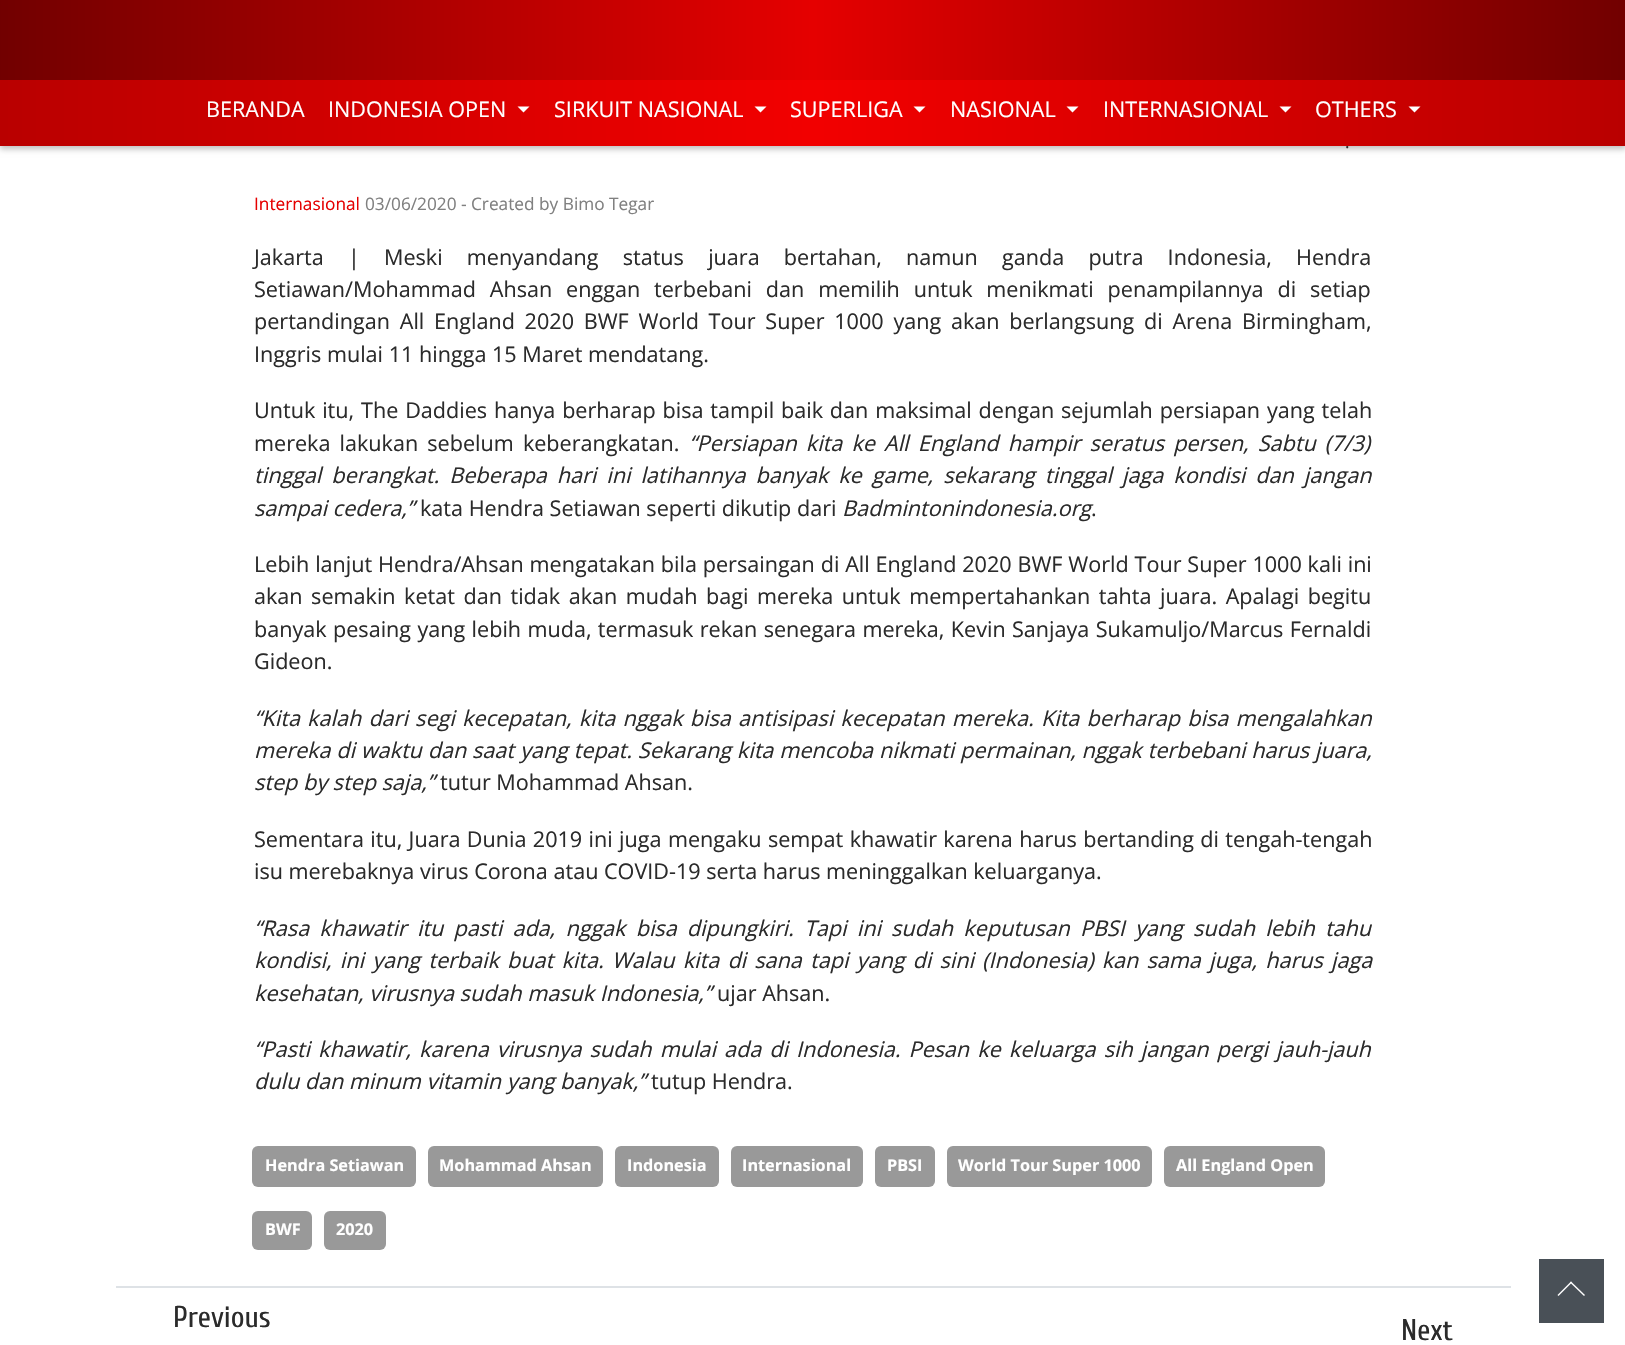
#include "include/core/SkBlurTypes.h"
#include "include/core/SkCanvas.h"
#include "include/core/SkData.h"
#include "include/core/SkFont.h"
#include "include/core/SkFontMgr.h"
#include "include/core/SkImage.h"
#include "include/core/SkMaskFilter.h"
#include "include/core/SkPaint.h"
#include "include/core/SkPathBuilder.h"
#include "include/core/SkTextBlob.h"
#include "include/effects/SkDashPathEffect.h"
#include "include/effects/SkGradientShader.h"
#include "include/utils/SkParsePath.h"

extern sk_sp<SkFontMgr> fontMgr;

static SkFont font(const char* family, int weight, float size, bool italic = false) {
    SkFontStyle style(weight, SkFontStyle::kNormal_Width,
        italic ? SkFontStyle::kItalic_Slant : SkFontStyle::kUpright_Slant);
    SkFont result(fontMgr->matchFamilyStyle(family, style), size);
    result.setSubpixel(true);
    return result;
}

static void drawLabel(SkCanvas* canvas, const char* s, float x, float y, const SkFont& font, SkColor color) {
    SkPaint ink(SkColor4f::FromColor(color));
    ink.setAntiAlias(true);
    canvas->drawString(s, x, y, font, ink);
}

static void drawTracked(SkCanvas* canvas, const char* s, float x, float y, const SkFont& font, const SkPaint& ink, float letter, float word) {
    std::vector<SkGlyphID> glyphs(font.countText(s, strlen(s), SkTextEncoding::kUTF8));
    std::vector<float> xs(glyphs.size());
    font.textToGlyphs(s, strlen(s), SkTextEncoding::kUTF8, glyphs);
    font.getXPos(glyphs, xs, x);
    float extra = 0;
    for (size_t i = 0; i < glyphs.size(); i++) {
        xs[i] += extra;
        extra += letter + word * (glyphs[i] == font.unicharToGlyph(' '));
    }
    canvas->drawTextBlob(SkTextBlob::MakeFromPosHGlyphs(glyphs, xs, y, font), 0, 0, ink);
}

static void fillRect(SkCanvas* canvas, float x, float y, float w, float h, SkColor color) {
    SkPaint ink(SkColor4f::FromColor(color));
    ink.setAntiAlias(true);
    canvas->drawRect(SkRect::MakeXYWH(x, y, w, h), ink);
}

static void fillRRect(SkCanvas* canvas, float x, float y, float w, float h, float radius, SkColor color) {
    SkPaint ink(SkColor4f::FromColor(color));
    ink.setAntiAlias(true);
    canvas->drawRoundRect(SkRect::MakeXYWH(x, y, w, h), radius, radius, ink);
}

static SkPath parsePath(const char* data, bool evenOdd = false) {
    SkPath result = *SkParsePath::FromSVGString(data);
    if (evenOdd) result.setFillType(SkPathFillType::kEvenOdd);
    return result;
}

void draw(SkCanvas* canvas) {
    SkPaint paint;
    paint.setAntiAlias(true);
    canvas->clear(0xFFFFFFFF);
    {
        const SkColor colors[] = {0xFF650000, 0xFFE50000, 0xFF650000};
        const float stops[] = {0, 0.5f, 1};
        const SkPoint ends[] = {{-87, 73}, {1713, 73}};
        paint.setShader(SkGradientShader::MakeLinear(ends, colors, stops, 3, SkTileMode::kClamp));
        paint.setAlpha(255);
    }
    canvas->drawRect(SkRect::MakeXYWH(0, 0, 1625, 146), paint);
    canvas->save();
    canvas->clipPath(parsePath("M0 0H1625V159H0ZM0 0H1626V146H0Z", true), true);
    paint.setShader(nullptr);
    paint.setColor(0x40000000);
    paint.setMaskFilter(SkMaskFilter::MakeBlur(kNormal_SkBlurStyle, 3));
    canvas->drawRect(SkRect::MakeXYWH(0, 3, 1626, 146), paint);
    paint.setMaskFilter(nullptr);
    canvas->restore();
    fillRect(canvas, 0, 80, 1625, 66, 0x80FF0000);
    SkFont font1 = font("Open Sans", 400, 21.6f);
    drawLabel(canvas, "BERANDA", 206, 117, font1, 0xFFFFFFFF);
    drawLabel(canvas, "INDONESIA OPEN", 328, 117, font1, 0xFFFFFFFF);
    paint.setColor(0xFFFFFFFF);
    canvas->drawPath(parsePath("M517.5 106.5H529.5L523.5 112.5Z"), paint);
    drawLabel(canvas, "SIRKUIT NASIONAL", 554, 117, font1, 0xFFFFFFFF);
    canvas->drawPath(parsePath("M754.5 106.5H766.5L760.5 112.5Z"), paint);
    drawLabel(canvas, "SUPERLIGA", 790, 117, font1, 0xFFFFFFFF);
    canvas->drawPath(parsePath("M913.5 106.5H925.5L919.5 112.5Z"), paint);
    drawLabel(canvas, "NASIONAL", 950, 117, font1, 0xFFFFFFFF);
    canvas->drawPath(parsePath("M1066.5 106.5H1078.5L1072.5 112.5Z"), paint);
    drawLabel(canvas, "INTERNASIONAL", 1103, 117, font1, 0xFFFFFFFF);
    canvas->drawPath(parsePath("M1279.5 106.5H1291.5L1285.5 112.5Z"), paint);
    drawLabel(canvas, "OTHERS", 1315, 117, font1, 0xFFFFFFFF);
    canvas->drawPath(parsePath("M1408.5 106.5H1420.5L1414.5 112.5Z"), paint);
    SkFont font2 = font("Open Sans", 400, 17.25f);
    drawLabel(canvas, ".", 1345, 148, font2, 0xFF2B2B2B);
    drawLabel(canvas, "Internasional", 254, 210, font2, 0xFFE50000);
    drawLabel(canvas, "03/06/2020", 365, 210, font2, 0xFF808080);
    SkFont font3 = font("Liberation Sans", 400, 17.25f);
    drawLabel(canvas, "‐", 461, 210, font3, 0xFF808080);
    drawLabel(canvas, "Created by Bimo Tegar", 471, 210, font2, 0xFF808080);
    paint.setColor(0xFF2B2B2B);
    drawTracked(canvas, "Jakarta | Meski menyandang status juara bertahan, namun ganda putra Indonesia, Hendra", 254, 265, font1, paint, 0, 18.6f);
    drawTracked(canvas, "Setiawan/Mohammad Ahsan enggan terbebani dan memilih untuk menikmati penampilannya di setiap", 254, 297, font1, paint, 0, 8.25f);
    drawTracked(canvas, "pertandingan All England 2020 BWF World Tour Super 1000 yang akan berlangsung di Arena Birmingham,", 254, 329, font1, paint, 0, 4.1f);
    drawLabel(canvas, "Inggris mulai 11 hingga 15 Maret mendatang.", 254, 362, font1, 0xFF2B2B2B);
    drawTracked(canvas, "Untuk itu, The Daddies hanya berharap bisa tampil baik dan maksimal dengan sejumlah persiapan yang telah", 254, 418, font1, paint, 0, 1.25f);
    drawTracked(canvas, "mereka lakukan sebelum keberangkatan.", 254, 451, font1, paint, 0, 3.5f);
    SkFont font4 = font("Open Sans", 400, 21.6f, true);
    drawTracked(canvas, "“Persiapan kita ke All England hampir seratus persen, Sabtu (7/3)", 689, 451, font4, paint, 0, 3.5f);
    drawTracked(canvas, "tinggal berangkat. Beberapa hari ini latihannya banyak ke game, sekarang tinggal jaga kondisi dan jangan", 254, 483, font4, paint, 0, 4.4f);
    drawLabel(canvas, "sampai cedera,”", 254, 516, font4, 0xFF2B2B2B);
    drawLabel(canvas, "kata Hendra Setiawan seperti dikutip dari", 420, 516, font1, 0xFF2B2B2B);
    drawLabel(canvas, "Badmintonindonesia.org", 842, 516, font4, 0xFF2B2B2B);
    drawLabel(canvas, ".", 1091, 516, font1, 0xFF2B2B2B);
    drawTracked(canvas, "Lebih lanjut Hendra/Ahsan mengatakan bila persaingan di All England 2020 BWF World Tour Super 1000 kali ini", 254, 572, font1, paint, 0, 0.2f);
    drawTracked(canvas, "akan semakin ketat dan tidak akan mudah bagi mereka untuk mempertahankan tahta juara. Apalagi begitu", 254, 604, font1, paint, 0, 2.9f);
    drawTracked(canvas, "banyak pesaing yang lebih muda, termasuk rekan senegara mereka, Kevin Sanjaya Sukamuljo/Marcus Fernaldi", 254, 637, font1, paint, 0, 0.75f);
    drawLabel(canvas, "Gideon.", 254, 669, font1, 0xFF2B2B2B);
    drawTracked(canvas, "“Kita kalah dari segi kecepatan, kita nggak bisa antisipasi kecepatan mereka. Kita berharap bisa mengalahkan", 254, 726, font4, paint, 0, 1.6f);
    drawTracked(canvas, "mereka di waktu dan saat yang tepat. Sekarang kita mencoba nikmati permainan, nggak terbebani harus juara,", 254, 758, font4, paint, 0, 0.25f);
    drawLabel(canvas, "step by step saja,”", 254, 790, font4, 0xFF2B2B2B);
    drawLabel(canvas, "tutur Mohammad Ahsan.", 440, 790, font1, 0xFF2B2B2B);
    drawTracked(canvas, "Sementara itu, Juara Dunia 2019 ini juga mengaku sempat khawatir karena harus bertanding di tengah-tengah", 254, 847, font1, paint, 0, 0.75f);
    drawLabel(canvas, "isu merebaknya virus Corona atau COVID-19 serta harus meninggalkan keluarganya.", 254, 879, font1, 0xFF2B2B2B);
    drawTracked(canvas, "“Rasa khawatir itu pasti ada, nggak bisa dipungkiri. Tapi ini sudah keputusan PBSI yang sudah lebih tahu", 254, 936, font4, paint, 0, 4.6f);
    drawTracked(canvas, "kondisi, ini yang terbaik buat kita. Walau kita di sana tapi yang di sini (Indonesia) kan sama juga, harus jaga", 254, 968, font4, paint, 0, 2.6f);
    drawLabel(canvas, "kesehatan, virusnya sudah masuk Indonesia,”", 254, 1001, font4, 0xFF2B2B2B);
    drawLabel(canvas, "ujar Ahsan.", 717, 1001, font1, 0xFF2B2B2B);
    drawTracked(canvas, "“Pasti khawatir, karena virusnya sudah mulai ada di Indonesia. Pesan ke keluarga sih jangan pergi jauh-jauh", 254, 1057, font4, paint, 0, 2.5f);
    drawLabel(canvas, "dulu dan minum vitamin yang banyak,”", 254, 1089, font4, 0xFF2B2B2B);
    drawLabel(canvas, "tutup Hendra.", 651, 1089, font1, 0xFF2B2B2B);
    fillRRect(canvas, 252, 1146, 164, 41, 6, 0xFF999999);
    SkFont font5 = font("Open Sans", 700, 16.25f);
    drawLabel(canvas, "Hendra Setiawan", 265, 1171, font5, 0xFFFFFFFF);
    fillRRect(canvas, 428, 1146, 175, 41, 6, 0xFF999999);
    drawLabel(canvas, "Mohammad Ahsan", 439, 1171, font5, 0xFFFFFFFF);
    fillRRect(canvas, 615, 1146, 104, 41, 6, 0xFF999999);
    drawLabel(canvas, "Indonesia", 627, 1171, font5, 0xFFFFFFFF);
    fillRRect(canvas, 731, 1146, 132, 41, 6, 0xFF999999);
    drawLabel(canvas, "Internasional", 742, 1171, font5, 0xFFFFFFFF);
    fillRRect(canvas, 875, 1146, 60, 41, 6, 0xFF999999);
    drawLabel(canvas, "PBSI", 887, 1171, font5, 0xFFFFFFFF);
    fillRRect(canvas, 947, 1146, 205, 41, 6, 0xFF999999);
    drawLabel(canvas, "World Tour Super 1000", 958, 1171, font5, 0xFFFFFFFF);
    fillRRect(canvas, 1164, 1146, 161, 41, 6, 0xFF999999);
    drawLabel(canvas, "All England Open", 1176, 1171, font5, 0xFFFFFFFF);
    fillRRect(canvas, 252, 1211, 60, 39, 6, 0xFF999999);
    drawLabel(canvas, "BWF", 265, 1235, font5, 0xFFFFFFFF);
    fillRRect(canvas, 324, 1211, 62, 39, 6, 0xFF999999);
    drawLabel(canvas, "2020", 336, 1235, font5, 0xFFFFFFFF);
    fillRect(canvas, 116, 1286, 1395, 2, 0xFFDEE2E6);
    SkFont font6 = font("Cuprum", 400, 30);
    drawLabel(canvas, "Previous", 173, 1327, font6, 0xFF2B2B2B);
    drawLabel(canvas, "Next", 1401, 1340, font6, 0xFF2B2B2B);
    fillRect(canvas, 1539, 1259, 65, 64, 0xFF495057);
    paint.setColor(0xFFFFFFFF);
    canvas->drawPath(parsePath("M1571 1281.5L1585 1295L1584 1296L1570 1282.5Z"), paint);
    canvas->drawPath(parsePath("M1571 1281.5L1572 1282.5L1558.5 1296L1557.5 1295Z"), paint);
}
